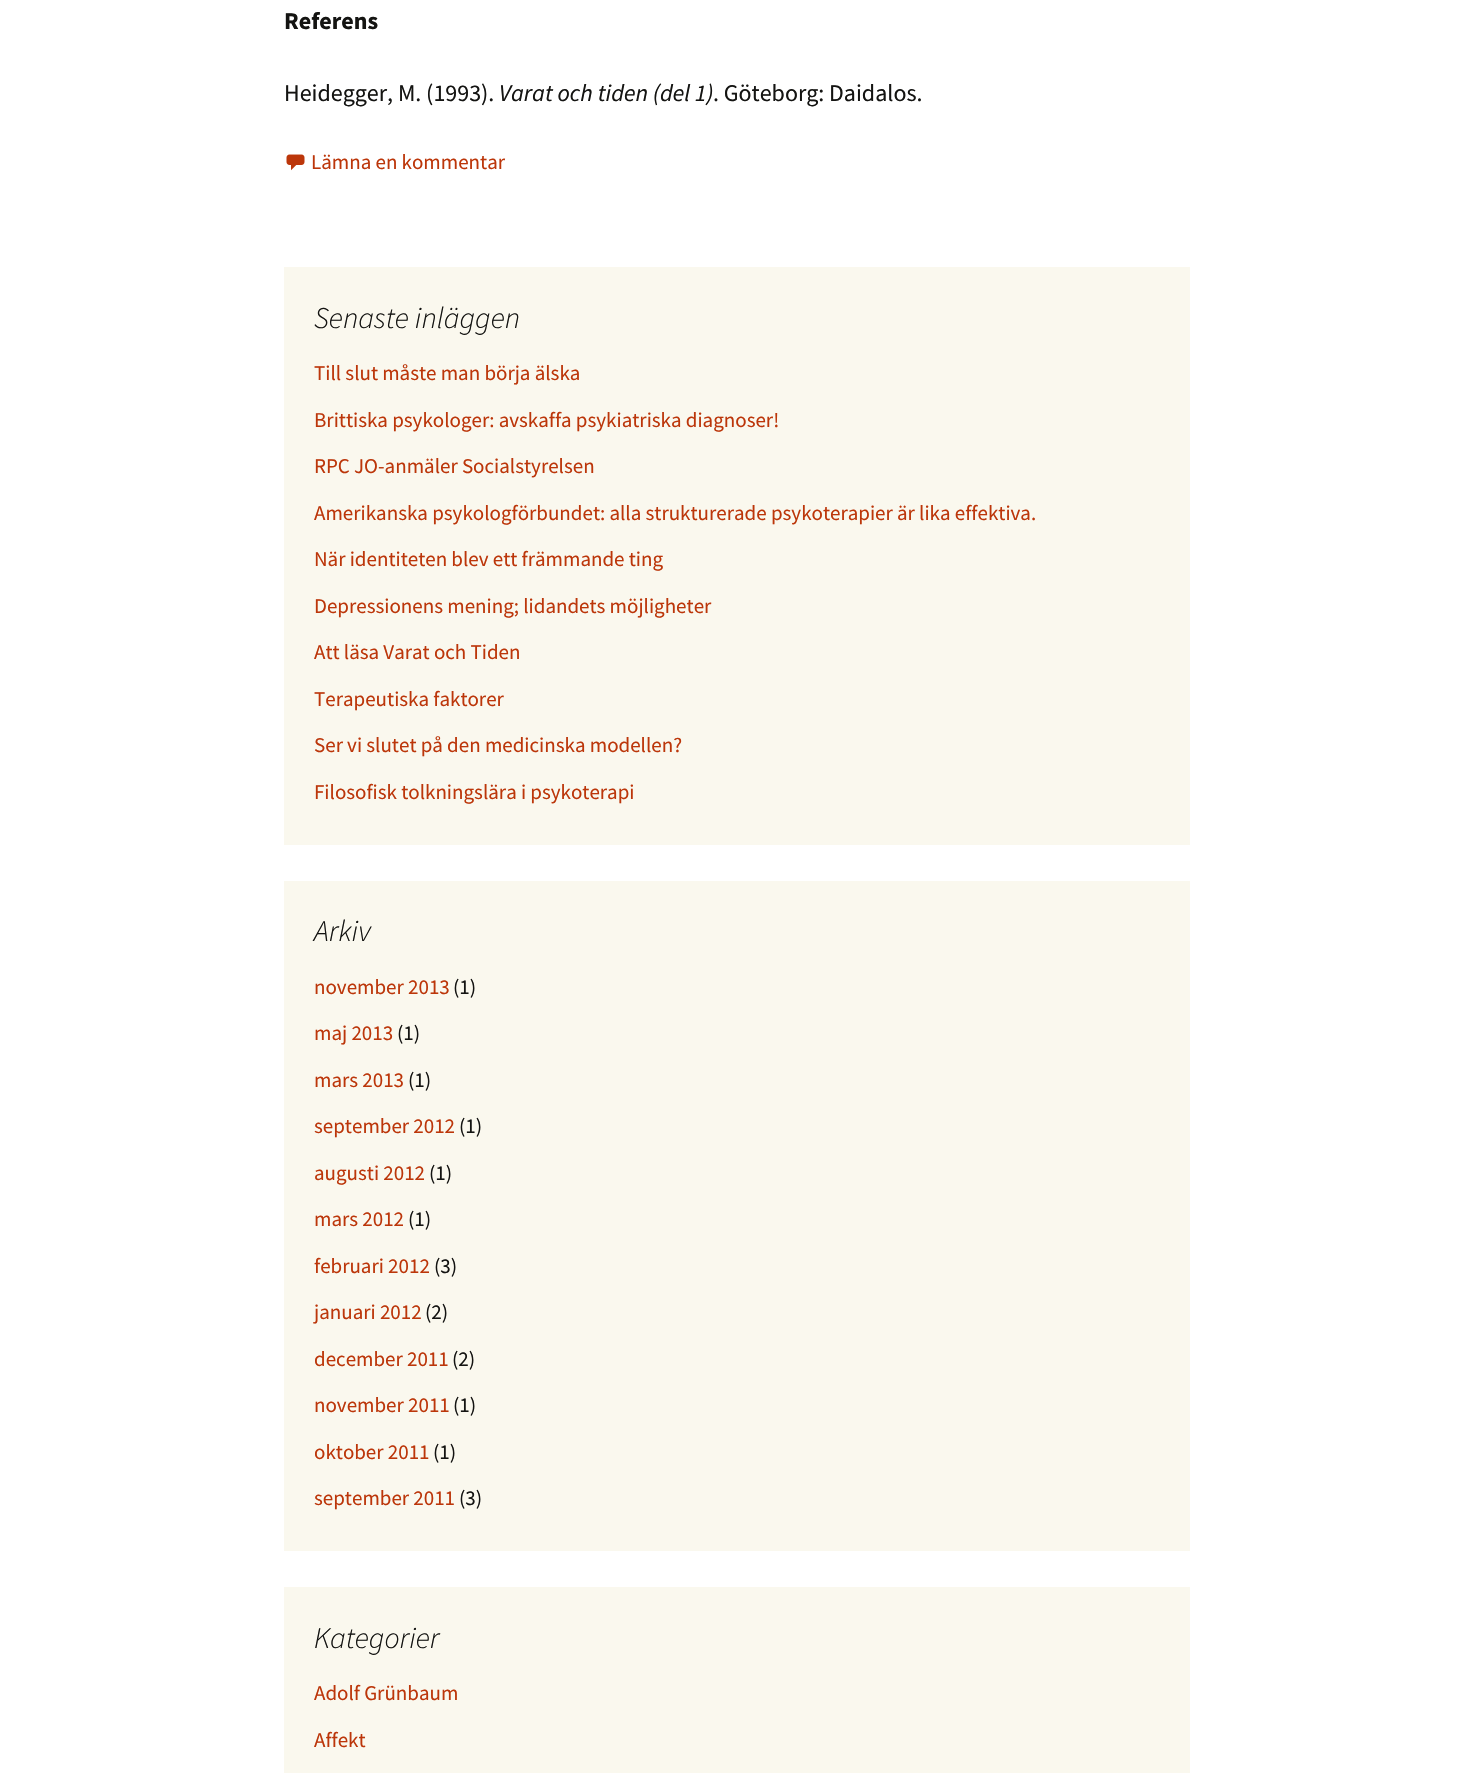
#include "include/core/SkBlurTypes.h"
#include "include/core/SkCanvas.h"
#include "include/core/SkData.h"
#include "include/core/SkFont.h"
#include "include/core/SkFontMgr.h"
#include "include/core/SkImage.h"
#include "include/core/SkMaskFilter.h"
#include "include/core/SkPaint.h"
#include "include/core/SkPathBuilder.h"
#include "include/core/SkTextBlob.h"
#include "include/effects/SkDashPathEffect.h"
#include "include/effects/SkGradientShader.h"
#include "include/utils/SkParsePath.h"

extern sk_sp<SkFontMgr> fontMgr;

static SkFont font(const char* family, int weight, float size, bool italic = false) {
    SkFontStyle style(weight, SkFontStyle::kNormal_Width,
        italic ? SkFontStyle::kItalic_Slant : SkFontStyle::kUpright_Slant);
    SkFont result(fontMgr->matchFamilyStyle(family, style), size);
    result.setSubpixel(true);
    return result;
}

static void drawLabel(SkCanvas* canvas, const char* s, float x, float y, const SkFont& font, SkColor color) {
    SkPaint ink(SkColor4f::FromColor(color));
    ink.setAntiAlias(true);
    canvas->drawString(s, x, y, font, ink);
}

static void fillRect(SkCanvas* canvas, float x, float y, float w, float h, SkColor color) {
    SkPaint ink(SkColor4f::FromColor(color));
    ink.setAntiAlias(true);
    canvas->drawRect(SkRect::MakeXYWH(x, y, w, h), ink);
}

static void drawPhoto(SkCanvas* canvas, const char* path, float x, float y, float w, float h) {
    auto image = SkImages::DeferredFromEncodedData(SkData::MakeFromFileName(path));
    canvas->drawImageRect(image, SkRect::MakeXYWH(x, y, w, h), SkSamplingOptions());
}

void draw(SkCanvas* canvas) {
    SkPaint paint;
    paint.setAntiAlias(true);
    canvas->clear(0xFFFFFFFF);
    SkFont font1 = font("Source Sans Pro", 700, 24);
    drawLabel(canvas, "Referens", 284, 29, font1, 0xFF141412);
    SkFont font2 = font("Source Sans Pro", 400, 24);
    drawLabel(canvas, "Heidegger, M. (1993).", 284, 101, font2, 0xFF141412);
    SkFont font3 = font("Source Sans Pro", 400, 24, true);
    drawLabel(canvas, "Varat och tiden (del 1)", 499, 101, font3, 0xFF141412);
    drawLabel(canvas, ". Göteborg: Daidalos.", 713, 101, font2, 0xFF141412);
    drawPhoto(canvas, "assets/img1.png", 286, 154, 19, 17);
    SkFont font4 = font("Source Sans Pro", 400, 21);
    drawLabel(canvas, "Lämna en kommentar", 311, 169, font4, 0xFFBC360A);
    fillRect(canvas, 284, 267, 906, 578, 0xFFFAF8EE);
    SkFont font5 = font("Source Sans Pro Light", 300, 30, true);
    drawLabel(canvas, "Senaste inläggen", 314, 328, font5, 0xFF141412);
    drawLabel(canvas, "Till slut måste man börja älska", 314, 380, font4, 0xFFBC360A);
    drawLabel(canvas, "Brittiska psykologer: avskaffa psykiatriska diagnoser!", 314, 427, font4, 0xFFBC360A);
    drawLabel(canvas, "RPC JO-anmäler Socialstyrelsen", 314, 473, font4, 0xFFBC360A);
    drawLabel(canvas, "Amerikanska psykologförbundet: alla strukturerade psykoterapier är lika effektiva.", 314, 520, font4, 0xFFBC360A);
    drawLabel(canvas, "När identiteten blev ett främmande ting", 314, 566, font4, 0xFFBC360A);
    drawLabel(canvas, "Depressionens mening; lidandets möjligheter", 314, 613, font4, 0xFFBC360A);
    drawLabel(canvas, "Att läsa Varat och Tiden", 314, 659, font4, 0xFFBC360A);
    drawLabel(canvas, "Terapeutiska faktorer", 314, 706, font4, 0xFFBC360A);
    drawLabel(canvas, "Ser vi slutet på den medicinska modellen?", 314, 752, font4, 0xFFBC360A);
    drawLabel(canvas, "Filosofisk tolkningslära i psykoterapi", 314, 799, font4, 0xFFBC360A);
    fillRect(canvas, 284, 881, 906, 670, 0xFFFAF8EE);
    drawLabel(canvas, "Arkiv", 314, 941, font5, 0xFF141412);
    drawLabel(canvas, "november 2013", 314, 994, font4, 0xFFBC360A);
    drawLabel(canvas, "(1)", 453, 994, font4, 0xFF141412);
    drawLabel(canvas, "maj 2013", 314, 1040, font4, 0xFFBC360A);
    drawLabel(canvas, "(1)", 397, 1040, font4, 0xFF141412);
    drawLabel(canvas, "mars 2013", 314, 1087, font4, 0xFFBC360A);
    drawLabel(canvas, "(1)", 408, 1087, font4, 0xFF141412);
    drawLabel(canvas, "september 2012", 314, 1133, font4, 0xFFBC360A);
    drawLabel(canvas, "(1)", 459, 1133, font4, 0xFF141412);
    drawLabel(canvas, "augusti 2012", 314, 1180, font4, 0xFFBC360A);
    drawLabel(canvas, "(1)", 429, 1180, font4, 0xFF141412);
    drawLabel(canvas, "mars 2012", 314, 1226, font4, 0xFFBC360A);
    drawLabel(canvas, "(1)", 408, 1226, font4, 0xFF141412);
    drawLabel(canvas, "februari 2012", 314, 1273, font4, 0xFFBC360A);
    drawLabel(canvas, "(3)", 434, 1273, font4, 0xFF141412);
    drawLabel(canvas, "januari 2012", 314, 1319, font4, 0xFFBC360A);
    drawLabel(canvas, "(2)", 425, 1319, font4, 0xFF141412);
    drawLabel(canvas, "december 2011", 314, 1366, font4, 0xFFBC360A);
    drawLabel(canvas, "(2)", 452, 1366, font4, 0xFF141412);
    drawLabel(canvas, "november 2011", 314, 1412, font4, 0xFFBC360A);
    drawLabel(canvas, "(1)", 453, 1412, font4, 0xFF141412);
    drawLabel(canvas, "oktober 2011", 314, 1459, font4, 0xFFBC360A);
    drawLabel(canvas, "(1)", 433, 1459, font4, 0xFF141412);
    drawLabel(canvas, "september 2011", 314, 1505, font4, 0xFFBC360A);
    drawLabel(canvas, "(3)", 459, 1505, font4, 0xFF141412);
    fillRect(canvas, 284, 1587, 906, 186, 0xFFFAF8EE);
    drawLabel(canvas, "Kategorier", 314, 1648, font5, 0xFF141412);
    drawLabel(canvas, "Adolf Grünbaum", 314, 1700, font4, 0xFFBC360A);
    drawLabel(canvas, "Affekt", 314, 1747, font4, 0xFFBC360A);
}
